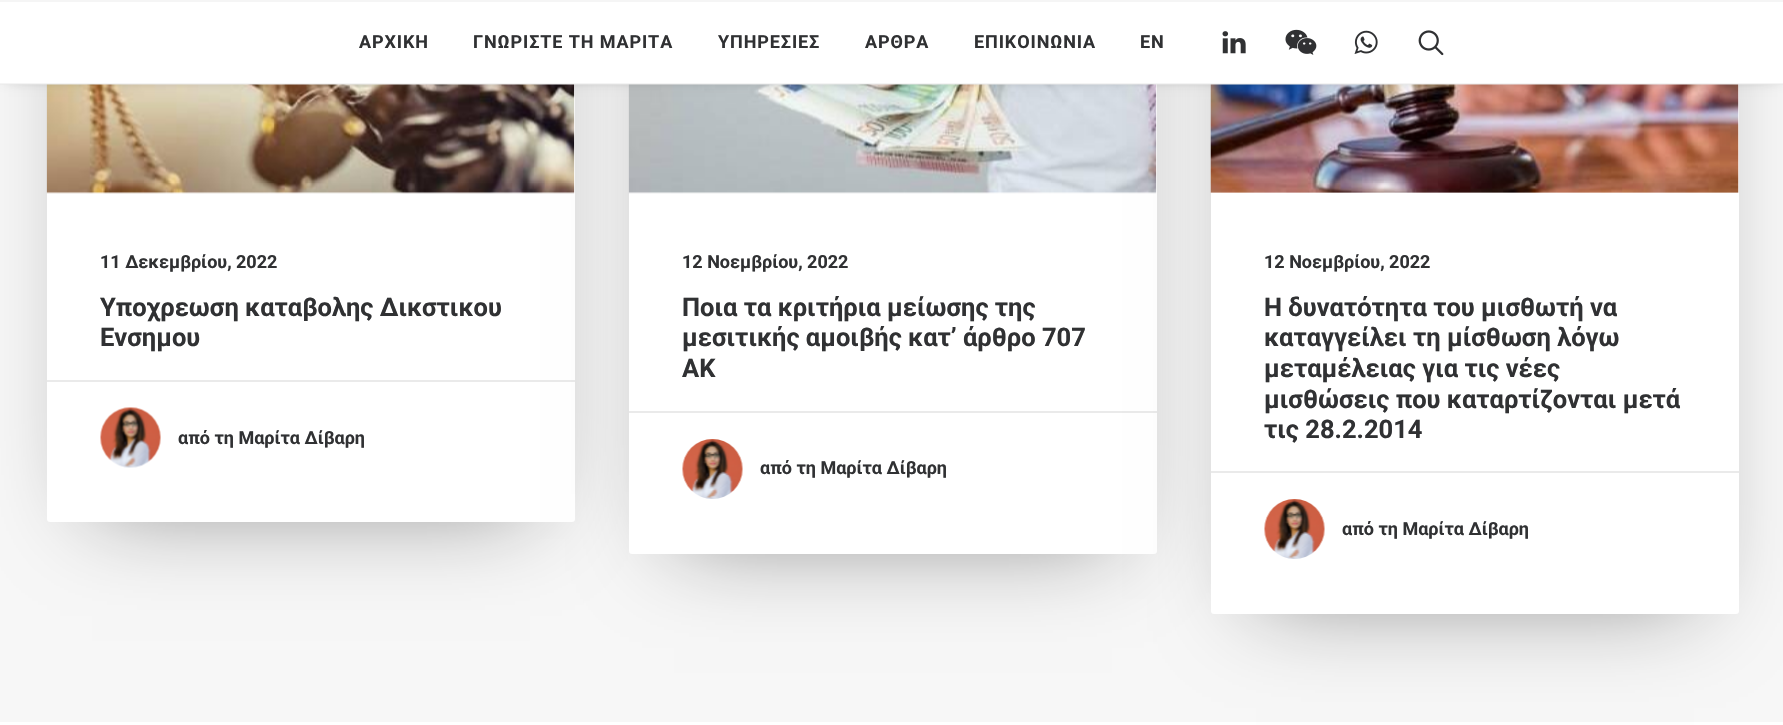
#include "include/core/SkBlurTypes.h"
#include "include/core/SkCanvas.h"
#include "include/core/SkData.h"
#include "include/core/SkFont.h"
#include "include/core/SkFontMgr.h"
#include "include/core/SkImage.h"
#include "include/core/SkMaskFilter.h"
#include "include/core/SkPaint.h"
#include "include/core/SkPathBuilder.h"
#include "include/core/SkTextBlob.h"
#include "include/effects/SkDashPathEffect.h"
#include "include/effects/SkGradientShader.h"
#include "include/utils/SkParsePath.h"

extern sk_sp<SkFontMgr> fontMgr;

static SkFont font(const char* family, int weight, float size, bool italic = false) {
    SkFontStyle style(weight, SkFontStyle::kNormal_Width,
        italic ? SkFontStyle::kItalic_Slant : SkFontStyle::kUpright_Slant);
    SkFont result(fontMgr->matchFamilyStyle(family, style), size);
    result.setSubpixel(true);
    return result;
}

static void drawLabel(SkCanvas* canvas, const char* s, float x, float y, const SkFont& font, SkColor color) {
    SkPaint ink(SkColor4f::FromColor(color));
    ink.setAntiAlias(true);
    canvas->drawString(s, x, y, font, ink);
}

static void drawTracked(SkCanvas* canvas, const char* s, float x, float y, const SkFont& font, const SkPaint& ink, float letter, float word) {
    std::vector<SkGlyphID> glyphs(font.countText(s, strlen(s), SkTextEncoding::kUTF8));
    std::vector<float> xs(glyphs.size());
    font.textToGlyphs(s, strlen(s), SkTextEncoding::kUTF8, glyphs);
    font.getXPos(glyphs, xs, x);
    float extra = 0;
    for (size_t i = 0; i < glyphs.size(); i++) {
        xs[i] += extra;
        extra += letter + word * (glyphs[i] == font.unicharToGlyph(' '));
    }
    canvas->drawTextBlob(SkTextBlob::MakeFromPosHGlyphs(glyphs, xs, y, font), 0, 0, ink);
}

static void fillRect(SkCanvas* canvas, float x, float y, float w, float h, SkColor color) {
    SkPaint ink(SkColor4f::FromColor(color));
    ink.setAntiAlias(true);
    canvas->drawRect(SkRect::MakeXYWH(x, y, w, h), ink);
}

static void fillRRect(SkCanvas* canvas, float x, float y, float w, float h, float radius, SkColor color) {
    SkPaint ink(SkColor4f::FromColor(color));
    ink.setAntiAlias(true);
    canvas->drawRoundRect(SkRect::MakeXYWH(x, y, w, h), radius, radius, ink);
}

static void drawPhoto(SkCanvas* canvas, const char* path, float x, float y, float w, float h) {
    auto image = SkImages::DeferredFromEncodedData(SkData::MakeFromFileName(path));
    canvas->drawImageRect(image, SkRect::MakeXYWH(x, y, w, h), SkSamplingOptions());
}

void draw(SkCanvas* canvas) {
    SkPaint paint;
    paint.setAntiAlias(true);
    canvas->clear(0xFFFFFFFF);
    fillRect(canvas, 0, 84, 1783, 638, 0xFFF7F7F7);
    paint.setColor(0x73000000);
    paint.setMaskFilter(SkMaskFilter::MakeBlur(kNormal_SkBlurStyle, 45));
    canvas->drawRect(SkRect::MakeXYWH(92, 5, 438, 502), paint);
    paint.setMaskFilter(nullptr);
    fillRRect(canvas, 47, -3, 528, 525, 3, 0xFFFFFFFF);
    drawPhoto(canvas, "assets/img5.png", 46, 84, 529, 110);
    fillRect(canvas, 47, 380, 528, 2, 0xFFEAEAEA);
    paint.setMaskFilter(SkMaskFilter::MakeBlur(kNormal_SkBlurStyle, 45));
    canvas->drawRect(SkRect::MakeXYWH(674, 5, 438, 534), paint);
    paint.setMaskFilter(nullptr);
    fillRRect(canvas, 629, -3, 528, 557, 3, 0xFFFFFFFF);
    drawPhoto(canvas, "assets/img7.png", 628, 84, 529, 110);
    fillRect(canvas, 629, 411, 528, 2, 0xFFEAEAEA);
    paint.setMaskFilter(SkMaskFilter::MakeBlur(kNormal_SkBlurStyle, 45));
    canvas->drawRect(SkRect::MakeXYWH(1256, 5, 438, 594), paint);
    paint.setMaskFilter(nullptr);
    fillRRect(canvas, 1211, -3, 528, 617, 3, 0xFFFFFFFF);
    drawPhoto(canvas, "assets/img9.png", 1210, 84, 529, 109);
    paint.setColor(0x99000000);
    paint.setMaskFilter(SkMaskFilter::MakeBlur(kNormal_SkBlurStyle, 7.5f));
    canvas->drawRect(SkRect::MakeXYWH(8, 21, 1770, 54), paint);
    paint.setMaskFilter(nullptr);
    fillRect(canvas, 0, 2, 1783, 82, 0xFFFFFFFF);
    fillRect(canvas, 0, 0, 1783, 2, 0xFFF5F5F5);
    fillRect(canvas, 0, 83, 1783, 2, 0x80EAEAEA);
    SkFont font1 = font("Roboto", 700, 18);
    paint.setColor(0xFF303133);
    drawTracked(canvas, "ΑΡΧΙΚΗ", 359, 48, font1, paint, 0.9f, 0);
    drawTracked(canvas, "ΓΝΩΡΙΣΤΕ ΤΗ ΜΑΡΙΤΑ", 473, 48, font1, paint, 0.9f, 0);
    drawTracked(canvas, "ΥΠΗΡΕΣΙΕΣ", 718, 48, font1, paint, 0.9f, 0);
    drawTracked(canvas, "ΑΡΘΡΑ", 865, 48, font1, paint, 0.9f, 0);
    drawTracked(canvas, "ΕΠΙΚΟΙΝΩΝΙΑ", 974, 48, font1, paint, 0.9f, 0);
    drawTracked(canvas, "EN", 1140, 48, font1, paint, 0.9f, 0);
    drawPhoto(canvas, "assets/img1.png", 1222, 31, 24, 23);
    drawPhoto(canvas, "assets/img2.png", 1285, 29, 32, 26);
    drawPhoto(canvas, "assets/img3.png", 1354, 30, 24, 24);
    drawPhoto(canvas, "assets/img4.png", 1418, 30, 26, 26);
    drawLabel(canvas, "11 Δεκεμβρίου, 2022", 100, 268, font1, 0xFF303133);
    SkFont font2 = font("Roboto", 700, 25.5f);
    drawLabel(canvas, "Υποχρεωση καταβολης Δικστικου", 100, 316, font2, 0xFF303133);
    drawLabel(canvas, "Ενσημου", 100, 346, font2, 0xFF303133);
    drawPhoto(canvas, "assets/img6.png", 100, 407, 61, 61);
    drawLabel(canvas, "από τη Μαρίτα Δίβαρη", 178, 444, font1, 0xFF303133);
    drawLabel(canvas, "12 Νοεμβρίου, 2022", 682, 268, font1, 0xFF303133);
    drawLabel(canvas, "Ποια τα κριτήρια μείωσης της", 682, 316, font2, 0xFF303133);
    drawLabel(canvas, "μεσιτικής αμοιβής κατ’ άρθρο 707", 682, 346, font2, 0xFF303133);
    drawLabel(canvas, "ΑΚ", 682, 377, font2, 0xFF303133);
    drawPhoto(canvas, "assets/img8.png", 682, 439, 61, 60);
    drawLabel(canvas, "από τη Μαρίτα Δίβαρη", 760, 474, font1, 0xFF303133);
    drawLabel(canvas, "12 Νοεμβρίου, 2022", 1264, 268, font1, 0xFF303133);
    drawLabel(canvas, "Η δυνατότητα του μισθωτή να", 1264, 316, font2, 0xFF303133);
    drawLabel(canvas, "καταγγείλει τη μίσθωση λόγω", 1264, 346, font2, 0xFF303133);
    drawLabel(canvas, "μεταμέλειας για τις νέες", 1264, 377, font2, 0xFF303133);
    drawLabel(canvas, "μισθώσεις που καταρτίζονται μετά", 1264, 408, font2, 0xFF303133);
    drawLabel(canvas, "τις 28.2.2014", 1264, 438, font2, 0xFF303133);
    fillRect(canvas, 1211, 471, 528, 2, 0xFFEAEAEA);
    drawPhoto(canvas, "assets/img8.png", 1264, 499, 61, 60);
    drawLabel(canvas, "από τη Μαρίτα Δίβαρη", 1342, 535, font1, 0xFF303133);
}
